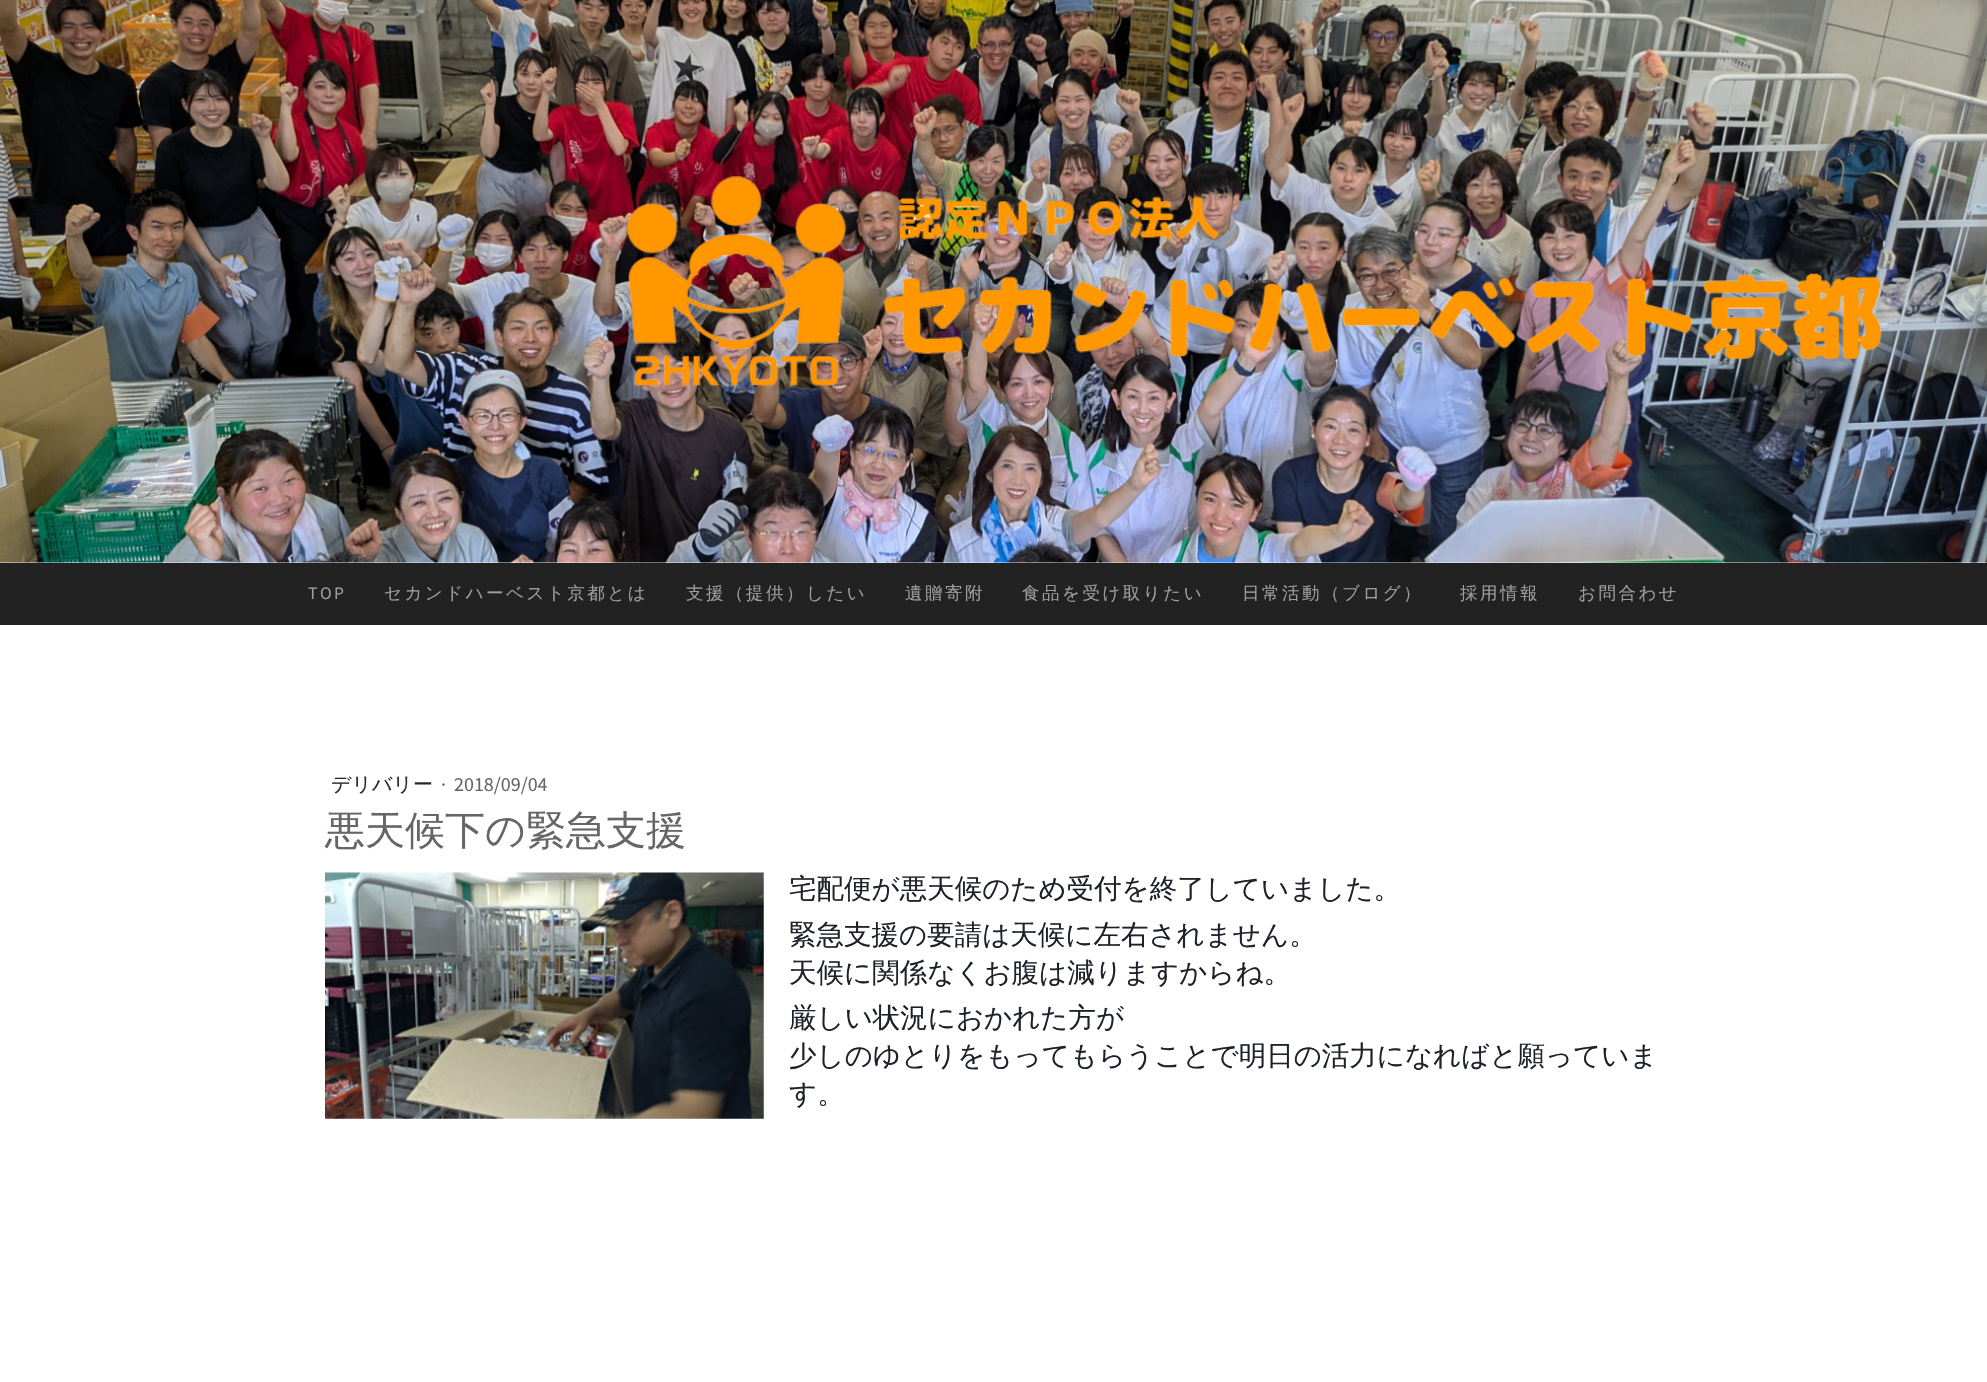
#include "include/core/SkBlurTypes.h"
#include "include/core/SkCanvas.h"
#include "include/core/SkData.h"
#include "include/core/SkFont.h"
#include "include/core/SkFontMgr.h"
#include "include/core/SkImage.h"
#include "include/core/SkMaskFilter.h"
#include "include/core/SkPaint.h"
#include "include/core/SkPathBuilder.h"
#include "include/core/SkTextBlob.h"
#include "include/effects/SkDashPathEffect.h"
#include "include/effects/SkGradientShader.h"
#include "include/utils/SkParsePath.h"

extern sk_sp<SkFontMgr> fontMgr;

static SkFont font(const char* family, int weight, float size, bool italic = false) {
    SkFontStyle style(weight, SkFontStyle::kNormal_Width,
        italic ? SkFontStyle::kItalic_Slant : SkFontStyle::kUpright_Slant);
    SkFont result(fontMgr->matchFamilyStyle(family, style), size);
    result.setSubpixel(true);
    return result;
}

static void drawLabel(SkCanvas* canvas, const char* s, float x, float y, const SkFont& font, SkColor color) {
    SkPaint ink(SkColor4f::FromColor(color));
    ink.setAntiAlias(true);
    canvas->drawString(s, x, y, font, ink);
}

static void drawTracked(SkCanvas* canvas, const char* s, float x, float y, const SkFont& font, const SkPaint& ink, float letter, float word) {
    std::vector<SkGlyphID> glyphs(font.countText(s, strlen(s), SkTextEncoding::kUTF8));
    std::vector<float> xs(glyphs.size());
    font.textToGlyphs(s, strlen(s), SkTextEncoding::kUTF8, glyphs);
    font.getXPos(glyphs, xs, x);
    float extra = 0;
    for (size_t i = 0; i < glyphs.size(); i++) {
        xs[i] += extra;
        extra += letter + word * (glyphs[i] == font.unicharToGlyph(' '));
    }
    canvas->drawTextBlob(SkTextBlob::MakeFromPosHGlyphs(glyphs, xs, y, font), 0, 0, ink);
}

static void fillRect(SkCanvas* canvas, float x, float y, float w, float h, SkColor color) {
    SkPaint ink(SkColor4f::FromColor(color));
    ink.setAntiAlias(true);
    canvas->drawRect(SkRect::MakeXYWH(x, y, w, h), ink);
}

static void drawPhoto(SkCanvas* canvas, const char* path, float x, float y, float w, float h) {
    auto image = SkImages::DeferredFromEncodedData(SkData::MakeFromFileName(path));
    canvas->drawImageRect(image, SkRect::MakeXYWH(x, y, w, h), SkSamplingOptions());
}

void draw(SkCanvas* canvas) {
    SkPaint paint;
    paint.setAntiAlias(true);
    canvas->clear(0xFFFFFFFF);
    drawPhoto(canvas, "assets/img1.png", 0, 0, 1987, 563);
    drawPhoto(canvas, "assets/img2.png", 626, 176, 1256, 211);
    fillRect(canvas, 0, 563, 1987, 62, 0xFF222222);
    SkFont font1 = font("Source Sans Pro", 400, 17.5f);
    paint.setColor(0xFF9D9E9E);
    drawTracked(canvas, "TOP", 308, 599, font1, paint, 2.5f, 0);
    SkFont font2 = font("WenQuanYi Zen Hei", 500, 17.5f);
    drawTracked(canvas, "セカンドハーベスト京都とは", 384, 599, font2, paint, 2.5f, 0);
    drawTracked(canvas, "支援（提供）したい", 686, 599, font2, paint, 2.5f, 0);
    drawTracked(canvas, "遺贈寄附", 905, 599, font2, paint, 2.5f, 0);
    drawTracked(canvas, "食品を受け取りたい", 1022, 599, font2, paint, 2.5f, 0);
    drawTracked(canvas, "日常活動（ブログ）", 1242, 599, font2, paint, 2.5f, 0);
    drawTracked(canvas, "採用情報", 1460, 599, font2, paint, 2.5f, 0);
    drawTracked(canvas, "お問合わせ", 1578, 599, font2, paint, 2.5f, 0);
    SkFont font3 = font("WenQuanYi Zen Hei", 500, 20);
    drawLabel(canvas, "デリバリー", 331, 791, font3, 0xFF282828);
    SkFont font4 = font("Source Sans Pro", 400, 20);
    drawLabel(canvas, "·", 441, 791, font4, 0xFF666666);
    drawLabel(canvas, "2018/09/04", 454, 791, font4, 0xFF666666);
    SkFont font5 = font("WenQuanYi Zen Hei", 500, 40);
    drawLabel(canvas, "悪天候下の緊急支援", 325, 844, font5, 0xFF666666);
    drawPhoto(canvas, "assets/img3.png", 325, 872, 439, 247);
    SkFont font6 = font("WenQuanYi Zen Hei", 500, 27.5f);
    drawLabel(canvas, "宅配便が悪天候のため受付を終了していました。", 789, 898, font6, 0xFF1D2129);
    drawLabel(canvas, "緊急支援の要請は天候に左右されません。", 789, 944, font6, 0xFF1D2129);
    drawLabel(canvas, "天候に関係なくお腹は減りますからね。", 789, 982, font6, 0xFF1D2129);
    drawLabel(canvas, "厳しい状況におかれた方が", 789, 1027, font6, 0xFF1D2129);
    drawLabel(canvas, "少しのゆとりをもってもらうことで明日の活力になればと願っていま", 789, 1065, font6, 0xFF1D2129);
    drawLabel(canvas, "す。", 789, 1103, font6, 0xFF1D2129);
}
